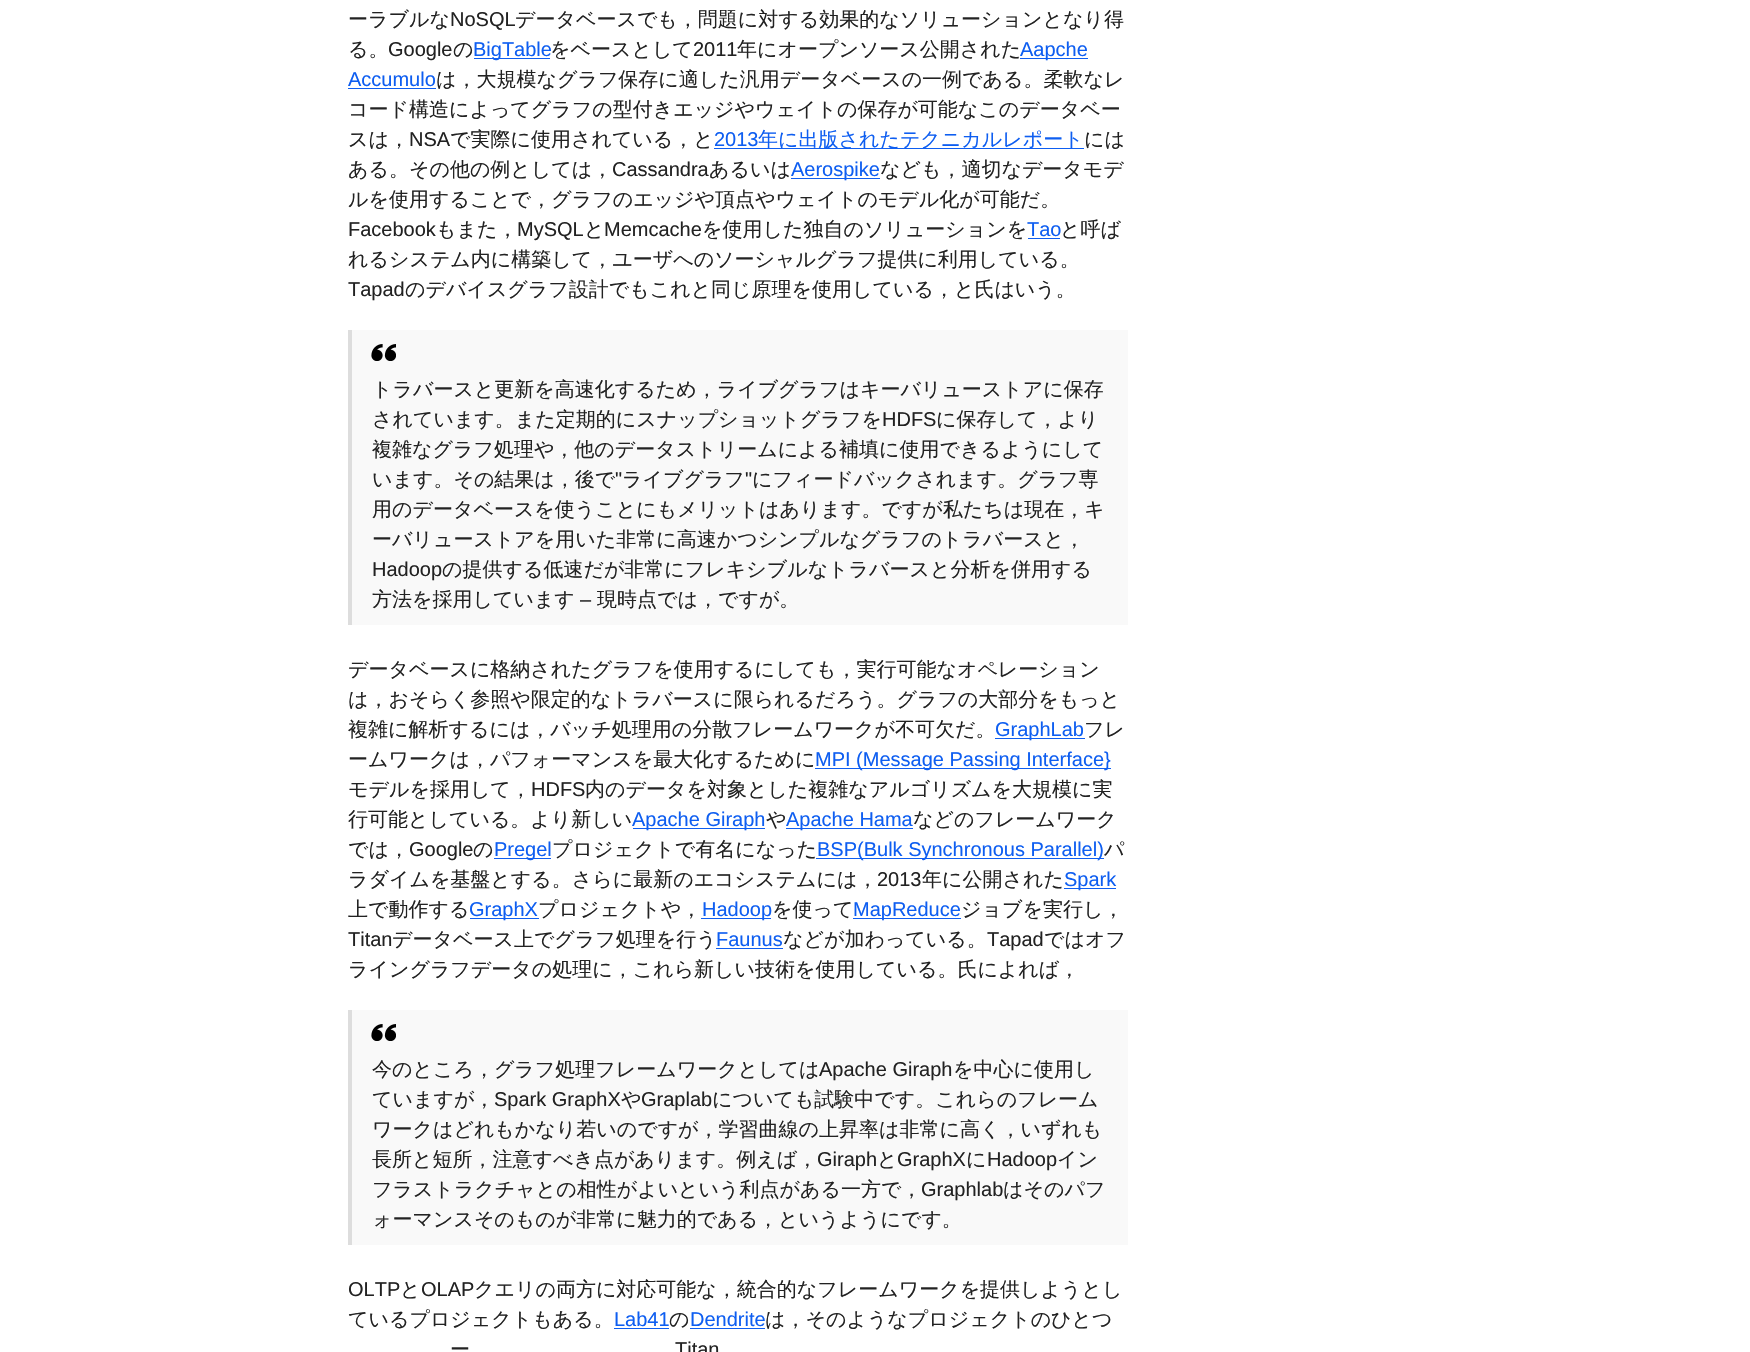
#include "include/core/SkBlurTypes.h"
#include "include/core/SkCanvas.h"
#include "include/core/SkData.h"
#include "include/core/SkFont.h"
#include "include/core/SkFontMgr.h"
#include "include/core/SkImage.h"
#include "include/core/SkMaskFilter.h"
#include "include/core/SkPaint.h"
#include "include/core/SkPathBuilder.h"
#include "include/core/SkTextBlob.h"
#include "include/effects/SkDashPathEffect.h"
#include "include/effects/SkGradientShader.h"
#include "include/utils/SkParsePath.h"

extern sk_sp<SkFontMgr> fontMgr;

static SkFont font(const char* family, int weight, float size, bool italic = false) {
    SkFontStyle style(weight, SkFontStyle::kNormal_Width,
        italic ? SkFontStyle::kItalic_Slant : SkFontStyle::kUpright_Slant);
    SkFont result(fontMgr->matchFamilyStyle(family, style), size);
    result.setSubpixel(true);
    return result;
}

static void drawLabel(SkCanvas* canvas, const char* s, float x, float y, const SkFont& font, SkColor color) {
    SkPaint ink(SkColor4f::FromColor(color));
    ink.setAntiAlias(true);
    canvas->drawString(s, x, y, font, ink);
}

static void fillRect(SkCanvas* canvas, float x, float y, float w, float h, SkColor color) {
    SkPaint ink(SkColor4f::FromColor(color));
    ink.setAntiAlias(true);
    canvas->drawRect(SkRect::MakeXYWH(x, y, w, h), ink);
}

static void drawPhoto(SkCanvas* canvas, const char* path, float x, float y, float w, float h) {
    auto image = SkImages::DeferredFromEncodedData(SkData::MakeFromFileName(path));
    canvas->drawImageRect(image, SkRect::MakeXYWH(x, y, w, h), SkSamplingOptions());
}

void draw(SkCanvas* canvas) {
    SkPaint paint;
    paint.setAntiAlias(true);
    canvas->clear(0xFFFFFFFF);
    SkFont font1 = font("WenQuanYi Zen Hei", 500, 20);
    drawLabel(canvas, "ーラブルな", 348, 26, font1, 0xFF222222);
    SkFont font2 = font("Liberation Sans", 400, 20);
    drawLabel(canvas, "NoSQL", 450, 26, font2, 0xFF222222);
    drawLabel(canvas, "データベースでも，問題に対する効果的なソリューションとなり得", 515, 26, font1, 0xFF222222);
    drawLabel(canvas, "る。", 348, 56, font1, 0xFF222222);
    drawLabel(canvas, "Google", 388, 56, font2, 0xFF222222);
    drawLabel(canvas, "の", 453, 56, font1, 0xFF222222);
    fillRect(canvas, 474, 58, 76, 1, 0xFF0E5EF1);
    drawLabel(canvas, "BigTable", 473, 56, font2, 0xFF0E5EF1);
    drawLabel(canvas, "をベースとして", 550, 56, font1, 0xFF222222);
    drawLabel(canvas, "2011", 693, 56, font2, 0xFF222222);
    drawLabel(canvas, "年にオープンソース公開された", 737, 56, font1, 0xFF222222);
    fillRect(canvas, 1020, 58, 68, 1, 0xFF0E5EF1);
    drawLabel(canvas, "Aapche", 1020, 56, font2, 0xFF0E5EF1);
    drawLabel(canvas, "Accumulo", 348, 86, font2, 0xFF0E5EF1);
    fillRect(canvas, 348, 88, 88, 1, 0xFF0E5EF1);
    drawLabel(canvas, "は，大規模なグラフ保存に適した汎用データベースの一例である。柔軟なレ", 436, 86, font1, 0xFF222222);
    drawLabel(canvas, "コード構造によってグラフの型付きエッジやウェイトの保存が可能なこのデータベー", 348, 116, font1, 0xFF222222);
    drawLabel(canvas, "スは，", 348, 146, font1, 0xFF222222);
    drawLabel(canvas, "NSA", 409, 146, font2, 0xFF222222);
    drawLabel(canvas, "で実際に使用されている，と", 450, 146, font1, 0xFF222222);
    drawLabel(canvas, "2013", 714, 146, font2, 0xFF0E5EF1);
    fillRect(canvas, 714, 148, 370, 1, 0xFF0E5EF1);
    drawLabel(canvas, "年に出版されたテクニカルレポート", 758, 146, font1, 0xFF0E5EF1);
    drawLabel(canvas, "には", 1084, 146, font1, 0xFF222222);
    drawLabel(canvas, "ある。その他の例としては，", 348, 176, font1, 0xFF222222);
    drawLabel(canvas, "Cassandra", 612, 176, font2, 0xFF222222);
    drawLabel(canvas, "あるいは", 709, 176, font1, 0xFF222222);
    fillRect(canvas, 791, 178, 89, 1, 0xFF0E5EF1);
    drawLabel(canvas, "Aerospike", 791, 176, font2, 0xFF0E5EF1);
    drawLabel(canvas, "なども，適切なデータモデ", 880, 176, font1, 0xFF222222);
    drawLabel(canvas, "ルを使用することで，グラフのエッジや頂点やウェイトのモデル化が可能だ。", 348, 206, font1, 0xFF222222);
    drawLabel(canvas, "Facebook", 348, 236, font2, 0xFF222222);
    drawLabel(canvas, "もまた，", 436, 236, font1, 0xFF222222);
    drawLabel(canvas, "MySQL", 517, 236, font2, 0xFF222222);
    drawLabel(canvas, "と", 584, 236, font1, 0xFF222222);
    drawLabel(canvas, "Memcache", 604, 236, font2, 0xFF222222);
    drawLabel(canvas, "を使用した独自のソリューションを", 702, 236, font1, 0xFF222222);
    drawLabel(canvas, "Tao", 1027, 236, font2, 0xFF0E5EF1);
    fillRect(canvas, 1028, 238, 32, 1, 0xFF0E5EF1);
    drawLabel(canvas, "と呼ば", 1060, 236, font1, 0xFF222222);
    drawLabel(canvas, "れるシステム内に構築して，ユーザへのソーシャルグラフ提供に利用している。", 348, 266, font1, 0xFF222222);
    drawLabel(canvas, "Tapad", 348, 296, font2, 0xFF222222);
    drawLabel(canvas, "のデバイスグラフ設計でもこれと同じ原理を使用している，と氏はいう。", 405, 296, font1, 0xFF222222);
    fillRect(canvas, 352, 330, 776, 295, 0xFFF9F9F9);
    fillRect(canvas, 348, 330, 4, 295, 0xFFDDDDDD);
    drawPhoto(canvas, "assets/img1.png", 371, 344, 25, 17);
    drawLabel(canvas, "トラバースと更新を高速化するため，ライブグラフはキーバリューストアに保存", 372, 396, font1, 0xFF222222);
    drawLabel(canvas, "されています。また定期的にスナップショットグラフを", 372, 426, font1, 0xFF222222);
    drawLabel(canvas, "HDFS", 882, 426, font2, 0xFF222222);
    drawLabel(canvas, "に保存して，より", 936, 426, font1, 0xFF222222);
    drawLabel(canvas, "複雑なグラフ処理や，他のデータストリームによる補填に使用できるようにして", 372, 456, font1, 0xFF222222);
    drawLabel(canvas, "います。その結果は，後で", 372, 486, font1, 0xFF222222);
    drawLabel(canvas, "\"", 615, 486, font2, 0xFF222222);
    drawLabel(canvas, "ライブグラフ", 622, 486, font1, 0xFF222222);
    drawLabel(canvas, "\"", 745, 486, font2, 0xFF222222);
    drawLabel(canvas, "にフィードバックされます。グラフ専", 752, 486, font1, 0xFF222222);
    drawLabel(canvas, "用のデータベースを使うことにもメリットはあります。ですが私たちは現在，キ", 372, 516, font1, 0xFF222222);
    drawLabel(canvas, "ーバリューストアを用いた非常に高速かつシンプルなグラフのトラバースと，", 372, 546, font1, 0xFF222222);
    drawLabel(canvas, "Hadoop", 372, 576, font2, 0xFF222222);
    drawLabel(canvas, "の提供する低速だが非常にフレキシブルなトラバースと分析を併用する", 442, 576, font1, 0xFF222222);
    drawLabel(canvas, "方法を採用しています", 372, 606, font1, 0xFF222222);
    drawLabel(canvas, "–", 580, 606, font2, 0xFF222222);
    drawLabel(canvas, "現時点では，ですが。", 597, 606, font1, 0xFF222222);
    drawLabel(canvas, "データベースに格納されたグラフを使用するにしても，実行可能なオペレーション", 348, 676, font1, 0xFF222222);
    drawLabel(canvas, "は，おそらく参照や限定的なトラバースに限られるだろう。グラフの大部分をもっと", 348, 706, font1, 0xFF222222);
    drawLabel(canvas, "複雑に解析するには，バッチ処理用の分散フレームワークが不可欠だ。", 348, 736, font1, 0xFF222222);
    fillRect(canvas, 995, 738, 90, 1, 0xFF0E5EF1);
    drawLabel(canvas, "GraphLab", 995, 736, font2, 0xFF0E5EF1);
    drawLabel(canvas, "フレ", 1084, 736, font1, 0xFF222222);
    drawLabel(canvas, "ームワークは，パフォーマンスを最大化するために", 348, 766, font1, 0xFF222222);
    fillRect(canvas, 815, 768, 296, 1, 0xFF0E5EF1);
    drawLabel(canvas, "MPI (Message Passing Interface}", 815, 766, font2, 0xFF0E5EF1);
    drawLabel(canvas, "モデルを採用して，", 348, 796, font1, 0xFF222222);
    drawLabel(canvas, "HDFS", 531, 796, font2, 0xFF222222);
    drawLabel(canvas, "内のデータを対象とした複雑なアルゴリズムを大規模に実", 585, 796, font1, 0xFF222222);
    drawLabel(canvas, "行可能としている。より新しい", 348, 826, font1, 0xFF222222);
    fillRect(canvas, 633, 828, 132, 1, 0xFF0E5EF1);
    drawLabel(canvas, "Apache Giraph", 632, 826, font2, 0xFF0E5EF1);
    drawLabel(canvas, "や", 766, 826, font1, 0xFF222222);
    fillRect(canvas, 786, 828, 127, 1, 0xFF0E5EF1);
    drawLabel(canvas, "Apache Hama", 786, 826, font2, 0xFF0E5EF1);
    drawLabel(canvas, "などのフレームワーク", 913, 826, font1, 0xFF222222);
    drawLabel(canvas, "では，", 348, 856, font1, 0xFF222222);
    drawLabel(canvas, "Google", 409, 856, font2, 0xFF222222);
    drawLabel(canvas, "の", 473, 856, font1, 0xFF222222);
    fillRect(canvas, 494, 858, 57, 1, 0xFF0E5EF1);
    drawLabel(canvas, "Pregel", 494, 856, font2, 0xFF0E5EF1);
    drawLabel(canvas, "プロジェクトで有名になった", 552, 856, font1, 0xFF222222);
    fillRect(canvas, 816, 858, 288, 1, 0xFF0E5EF1);
    drawLabel(canvas, "BSP(Bulk Synchronous Parallel)", 817, 856, font2, 0xFF0E5EF1);
    drawLabel(canvas, "パ", 1104, 856, font1, 0xFF222222);
    drawLabel(canvas, "ラダイムを基盤とする。さらに最新のエコシステムには，", 348, 886, font1, 0xFF222222);
    drawLabel(canvas, "2013", 877, 886, font2, 0xFF222222);
    drawLabel(canvas, "年に公開された", 922, 886, font1, 0xFF222222);
    fillRect(canvas, 1064, 888, 52, 1, 0xFF0E5EF1);
    drawLabel(canvas, "Spark", 1064, 886, font2, 0xFF0E5EF1);
    drawLabel(canvas, "上で動作する", 348, 916, font1, 0xFF222222);
    fillRect(canvas, 470, 918, 69, 1, 0xFF0E5EF1);
    drawLabel(canvas, "GraphX", 469, 916, font2, 0xFF0E5EF1);
    drawLabel(canvas, "プロジェクトや，", 538, 916, font1, 0xFF222222);
    fillRect(canvas, 701, 918, 70, 1, 0xFF0E5EF1);
    drawLabel(canvas, "Hadoop", 702, 916, font2, 0xFF0E5EF1);
    drawLabel(canvas, "を使って", 772, 916, font1, 0xFF222222);
    fillRect(canvas, 853, 918, 108, 1, 0xFF0E5EF1);
    drawLabel(canvas, "MapReduce", 853, 916, font2, 0xFF0E5EF1);
    drawLabel(canvas, "ジョブを実行し，", 961, 916, font1, 0xFF222222);
    drawLabel(canvas, "Titan", 348, 946, font2, 0xFF222222);
    drawLabel(canvas, "データベース上でグラフ処理を行う", 392, 946, font1, 0xFF222222);
    drawLabel(canvas, "Faunus", 716, 946, font2, 0xFF0E5EF1);
    fillRect(canvas, 716, 948, 67, 1, 0xFF0E5EF1);
    drawLabel(canvas, "などが加わっている。", 783, 946, font1, 0xFF222222);
    drawLabel(canvas, "Tapad", 987, 946, font2, 0xFF222222);
    drawLabel(canvas, "ではオフ", 1044, 946, font1, 0xFF222222);
    drawLabel(canvas, "ライングラフデータの処理に，これら新しい技術を使用している。氏によれば，", 348, 976, font1, 0xFF222222);
    fillRect(canvas, 352, 1010, 776, 235, 0xFFF9F9F9);
    fillRect(canvas, 348, 1010, 4, 235, 0xFFDDDDDD);
    drawPhoto(canvas, "assets/img1.png", 371, 1024, 25, 17);
    drawLabel(canvas, "今のところ，グラフ処理フレームワークとしては", 372, 1076, font1, 0xFF222222);
    drawLabel(canvas, "Apache Giraph", 819, 1076, font2, 0xFF222222);
    drawLabel(canvas, "を中心に使用し", 953, 1076, font1, 0xFF222222);
    drawLabel(canvas, "ていますが，", 372, 1106, font1, 0xFF222222);
    drawLabel(canvas, "Spark GraphX", 494, 1106, font2, 0xFF222222);
    drawLabel(canvas, "や", 621, 1106, font1, 0xFF222222);
    drawLabel(canvas, "Graplab", 641, 1106, font2, 0xFF222222);
    drawLabel(canvas, "についても試験中です。これらのフレーム", 712, 1106, font1, 0xFF222222);
    drawLabel(canvas, "ワークはどれもかなり若いのですが，学習曲線の上昇率は非常に高く，いずれも", 372, 1136, font1, 0xFF222222);
    drawLabel(canvas, "長所と短所，注意すべき点があります。例えば，", 372, 1166, font1, 0xFF222222);
    drawLabel(canvas, "Giraph", 817, 1166, font2, 0xFF222222);
    drawLabel(canvas, "と", 877, 1166, font1, 0xFF222222);
    drawLabel(canvas, "GraphX", 897, 1166, font2, 0xFF222222);
    drawLabel(canvas, "に", 966, 1166, font1, 0xFF222222);
    drawLabel(canvas, "Hadoop", 987, 1166, font2, 0xFF222222);
    drawLabel(canvas, "イン", 1057, 1166, font1, 0xFF222222);
    drawLabel(canvas, "フラストラクチャとの相性がよいという利点がある一方で，", 372, 1196, font1, 0xFF222222);
    drawLabel(canvas, "Graphlab", 921, 1196, font2, 0xFF222222);
    drawLabel(canvas, "はそのパフ", 1003, 1196, font1, 0xFF222222);
    drawLabel(canvas, "ォーマンスそのものが非常に魅力的である，というようにです。", 372, 1226, font1, 0xFF222222);
    drawLabel(canvas, "OLTP", 348, 1296, font2, 0xFF222222);
    drawLabel(canvas, "と", 400, 1296, font1, 0xFF222222);
    drawLabel(canvas, "OLAP", 421, 1296, font2, 0xFF222222);
    drawLabel(canvas, "クエリの両方に対応可能な，統合的なフレームワークを提供しようとし", 474, 1296, font1, 0xFF222222);
    drawLabel(canvas, "ているプロジェクトもある。", 348, 1326, font1, 0xFF222222);
    drawLabel(canvas, "Lab41", 614, 1326, font2, 0xFF0E5EF1);
    fillRect(canvas, 614, 1328, 55, 1, 0xFF0E5EF1);
    drawLabel(canvas, "の", 669, 1326, font1, 0xFF222222);
    drawLabel(canvas, "Dendrite", 690, 1326, font2, 0xFF0E5EF1);
    fillRect(canvas, 690, 1328, 75, 1, 0xFF0E5EF1);
    drawLabel(canvas, "は，そのようなプロジェクトのひとつ", 765, 1326, font1, 0xFF222222);
    drawLabel(canvas, "ー", 450, 1356, font1, 0xFF222222);
    drawLabel(canvas, "Titan", 675, 1356, font2, 0xFF222222);
}
